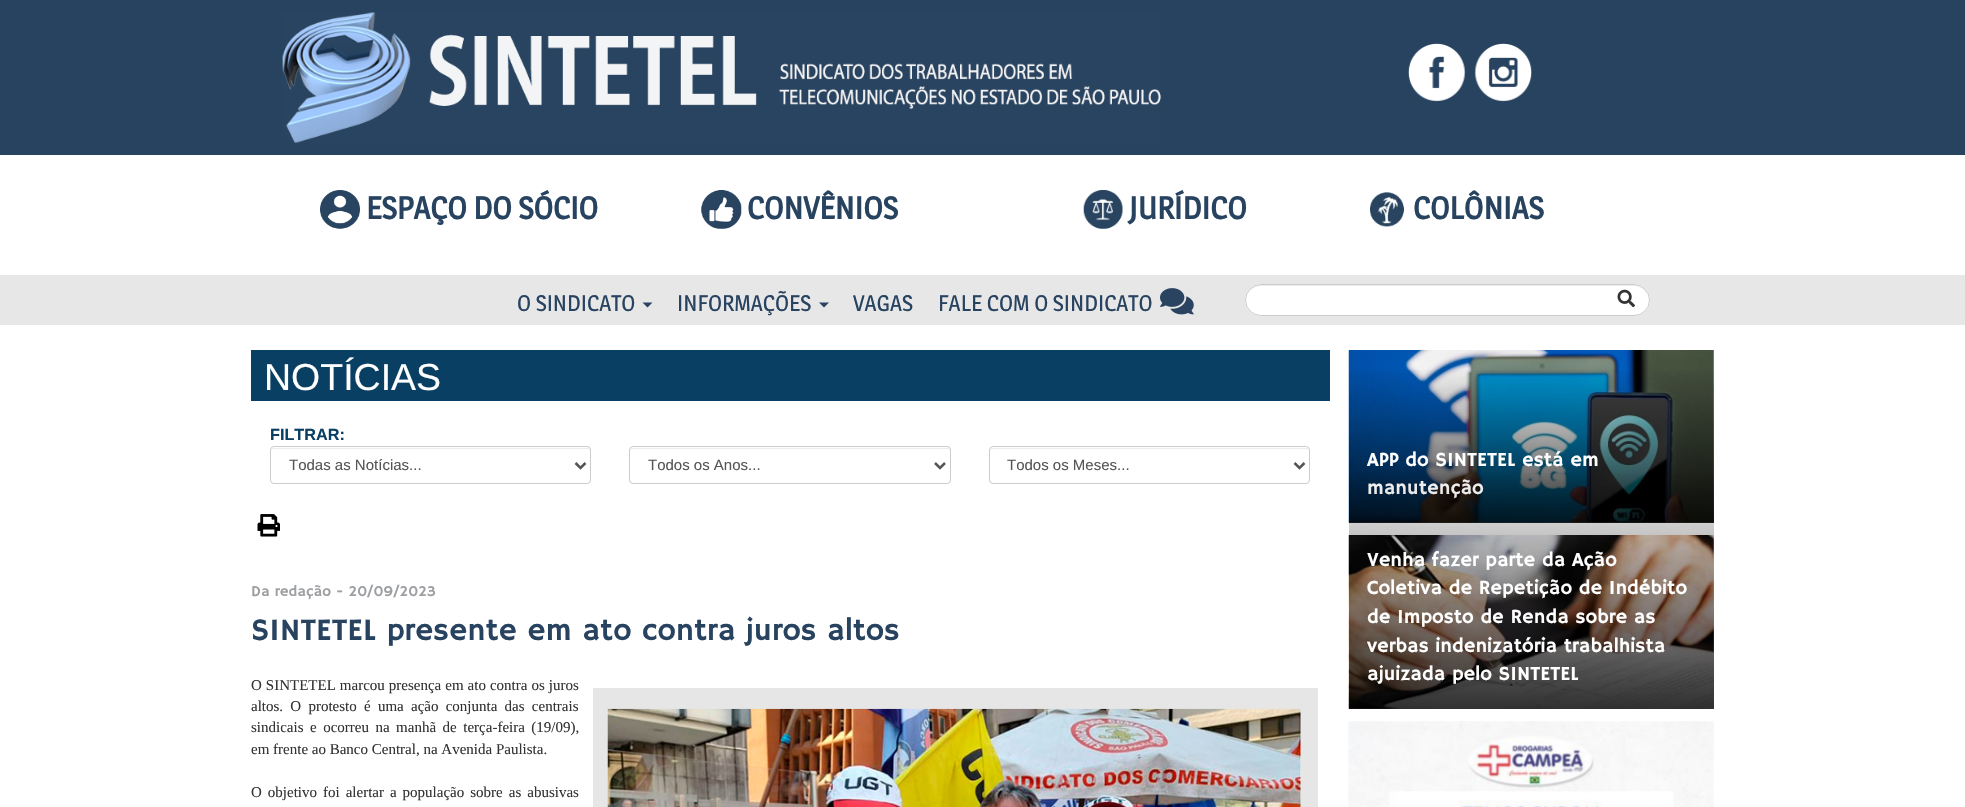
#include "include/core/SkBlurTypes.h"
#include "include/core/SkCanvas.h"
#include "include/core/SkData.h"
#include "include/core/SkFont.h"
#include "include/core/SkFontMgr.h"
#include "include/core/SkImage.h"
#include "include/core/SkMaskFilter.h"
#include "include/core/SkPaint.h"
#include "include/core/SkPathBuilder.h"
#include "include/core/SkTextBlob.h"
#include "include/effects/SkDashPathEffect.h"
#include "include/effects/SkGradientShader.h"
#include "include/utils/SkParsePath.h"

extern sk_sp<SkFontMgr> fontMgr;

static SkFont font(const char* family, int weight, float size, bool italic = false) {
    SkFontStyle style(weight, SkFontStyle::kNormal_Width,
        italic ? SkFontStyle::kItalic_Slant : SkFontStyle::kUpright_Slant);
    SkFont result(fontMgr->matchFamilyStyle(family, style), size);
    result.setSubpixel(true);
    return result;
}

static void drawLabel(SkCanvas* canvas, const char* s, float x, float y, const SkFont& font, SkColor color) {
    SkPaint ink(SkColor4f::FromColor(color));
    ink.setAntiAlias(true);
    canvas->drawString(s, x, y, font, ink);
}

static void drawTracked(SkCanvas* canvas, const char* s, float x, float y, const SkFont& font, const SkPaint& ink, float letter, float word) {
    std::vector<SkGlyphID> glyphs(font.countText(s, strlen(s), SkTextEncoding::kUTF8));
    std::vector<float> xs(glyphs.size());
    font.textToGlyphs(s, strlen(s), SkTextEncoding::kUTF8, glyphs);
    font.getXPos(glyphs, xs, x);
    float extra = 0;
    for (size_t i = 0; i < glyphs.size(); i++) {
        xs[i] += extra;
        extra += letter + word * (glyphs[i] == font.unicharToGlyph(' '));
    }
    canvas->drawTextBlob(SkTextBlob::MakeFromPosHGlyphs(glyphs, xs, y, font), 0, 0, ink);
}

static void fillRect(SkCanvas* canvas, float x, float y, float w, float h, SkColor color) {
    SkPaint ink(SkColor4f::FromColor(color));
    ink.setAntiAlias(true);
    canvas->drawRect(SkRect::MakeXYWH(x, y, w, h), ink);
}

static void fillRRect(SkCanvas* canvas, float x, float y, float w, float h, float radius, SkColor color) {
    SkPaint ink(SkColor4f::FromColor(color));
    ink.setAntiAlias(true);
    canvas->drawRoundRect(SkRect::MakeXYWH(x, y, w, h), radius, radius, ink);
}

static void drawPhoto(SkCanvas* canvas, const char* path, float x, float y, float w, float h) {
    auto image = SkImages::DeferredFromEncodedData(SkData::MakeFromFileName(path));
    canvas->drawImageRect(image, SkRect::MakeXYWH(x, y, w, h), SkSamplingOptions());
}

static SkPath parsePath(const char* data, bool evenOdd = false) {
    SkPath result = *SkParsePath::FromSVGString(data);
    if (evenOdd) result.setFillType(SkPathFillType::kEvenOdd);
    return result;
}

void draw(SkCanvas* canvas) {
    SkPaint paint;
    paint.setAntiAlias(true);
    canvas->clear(0xFFFFFFFF);
    fillRect(canvas, 0, 0, 1965, 155, 0xFF284360);
    drawPhoto(canvas, "assets/img1.png", 282, 12, 879, 131);
    drawPhoto(canvas, "assets/img2.png", 1408, 43, 58, 59);
    drawPhoto(canvas, "assets/img3.png", 1474, 43, 58, 59);
    drawPhoto(canvas, "assets/img4.png", 320, 190, 40, 39);
    SkFont font1 = font("Magra", 700, 31.25f);
    drawLabel(canvas, "ESPAÇO DO SÓCIO", 366, 219, font1, 0xFF284360);
    drawPhoto(canvas, "assets/img5.png", 701, 190, 41, 39);
    drawLabel(canvas, "CONVÊNIOS", 747, 219, font1, 0xFF284360);
    drawPhoto(canvas, "assets/img6.png", 1083, 190, 40, 39);
    drawLabel(canvas, "JURÍDICO", 1129, 219, font1, 0xFF284360);
    drawPhoto(canvas, "assets/img7.png", 1370, 192, 34, 35);
    drawLabel(canvas, "COLÔNIAS", 1413, 219, font1, 0xFF284360);
    fillRect(canvas, 0, 275, 1965, 50, 0xFFE7E7E7);
    SkFont font2 = font("Magra", 400, 22.5f);
    drawLabel(canvas, "O SINDICATO", 517, 311, font2, 0xFF284360);
    paint.setColor(0xFF2A4361);
    canvas->drawPath(parsePath("M642.5 302.5H652.5L647.5 307.5Z"), paint);
    drawLabel(canvas, "INFORMAÇÕES", 677, 311, font2, 0xFF284360);
    canvas->drawPath(parsePath("M819 302.5H829L824 307.5Z"), paint);
    drawLabel(canvas, "VAGAS", 853, 311, font2, 0xFF284360);
    drawLabel(canvas, "FALE COM O SINDICATO", 938, 311, font2, 0xFF284360);
    drawPhoto(canvas, "assets/img8.png", 1160, 288, 34, 27);
    fillRRect(canvas, 1245, 284, 405, 32, 16, 0xFFFFFFFF);
    paint.setColor(0xFFECECEC);
    canvas->drawPath(parsePath("M1261 286H1634C1642 286 1649 293 1649 301C1649 293 1644 287 1637 285H1261C1253 285 1246 292 1246 301C1246 293 1253 286 1261 286Z"), paint);
    paint.setStroke(true);
    paint.setStrokeWidth(1);
    paint.setColor(0xFFCCCCCC);
    canvas->drawRoundRect(SkRect::MakeXYWH(1245.5f, 284.5f, 404, 31), 15.5f, 15.5f, paint);
    drawPhoto(canvas, "assets/img9.png", 1617, 289, 18, 19);
    fillRect(canvas, 251, 350, 1079, 51, 0xFF093F63);
    SkFont font3 = font("Liberation Sans", 400, 37.5f);
    drawLabel(canvas, "NOTÍCIAS", 264, 390, font3, 0xFFFFFFFF);
    SkFont font4 = font("Liberation Sans", 700, 16.25f);
    drawLabel(canvas, "FILTRAR:", 270, 440, font4, 0xFF093F63);
    paint.setStroke(false);
    paint.setColor(0xFFECECEC);
    canvas->drawPath(parsePath("M274 449H588C589 449 590 450 590 451C590 449 589 448 588 448H274C272 448 271 449 271 451C271 450 272 449 274 449Z"), paint);
    paint.setStroke(true);
    paint.setColor(0xFFCCCCCC);
    canvas->drawRoundRect(SkRect::MakeXYWH(270.5f, 446.5f, 320, 37), 3.5f, 3.5f, paint);
    paint.setStrokeWidth(2.5f);
    paint.setColor(0xFF555555);
    canvas->drawPath(parsePath("M575.5 463L580.5 468L585.5 463"), paint);
    SkFont font5 = font("Liberation Sans", 400, 15);
    drawLabel(canvas, "Todas as Notícias...", 289, 470, font5, 0xFF555555);
    paint.setStroke(false);
    paint.setColor(0xFFECECEC);
    canvas->drawPath(parsePath("M632 449H948C949 449 950 450 950 451C950 449 949 448 948 448H632C631 448 630 449 630 451C630 450 631 449 632 449Z"), paint);
    paint.setStroke(true);
    paint.setStrokeWidth(1);
    paint.setColor(0xFFCCCCCC);
    canvas->drawRoundRect(SkRect::MakeXYWH(629.5f, 446.5f, 321, 37), 3.5f, 3.5f, paint);
    paint.setStrokeWidth(2.5f);
    paint.setColor(0xFF555555);
    canvas->drawPath(parsePath("M935 463L940 468L945 463"), paint);
    drawLabel(canvas, "Todos os Anos...", 648, 470, font5, 0xFF555555);
    paint.setStroke(false);
    paint.setColor(0xFFECECEC);
    canvas->drawPath(parsePath("M992 449H1306C1308 449 1309 450 1309 451C1309 449 1308 448 1306 448H992C991 448 990 449 990 451C990 450 991 449 992 449Z"), paint);
    paint.setStroke(true);
    paint.setStrokeWidth(1);
    paint.setColor(0xFFCCCCCC);
    canvas->drawRoundRect(SkRect::MakeXYWH(989.5f, 446.5f, 320, 37), 3.5f, 3.5f, paint);
    paint.setStrokeWidth(2.5f);
    paint.setColor(0xFF555555);
    canvas->drawPath(parsePath("M1294.5 463L1299.5 468L1304.5 463"), paint);
    drawLabel(canvas, "Todos os Meses...", 1007, 470, font5, 0xFF555555);
    drawPhoto(canvas, "assets/img10.png", 257, 514, 23, 23);
    SkFont font6 = font("Hammersmith One", 400, 15);
    drawLabel(canvas, "Da redação - 20/09/2023", 251, 596, font6, 0xFF9D9FA2);
    SkFont font7 = font("Hammersmith One", 400, 31.25f);
    drawLabel(canvas, "SINTETEL presente em ato contra juros altos", 251, 640, font7, 0xFF284360);
    SkFont font8 = font("Liberation Serif", 400, 15);
    paint.setStroke(false);
    paint.setColor(0xFF333333);
    drawTracked(canvas, "O SINTETEL marcou presença em ato contra os juros", 251, 690, font8, paint, 0, 0.25f);
    drawTracked(canvas, "altos. O protesto é uma ação conjunta das centrais", 251, 711, font8, paint, 0, 3.5f);
    drawTracked(canvas, "sindicais e ocorreu na manhã de terça-feira (19/09),", 251, 732, font8, paint, 0, 2.75f);
    drawLabel(canvas, "em frente ao Banco Central, na Avenida Paulista.", 251, 754, font8, 0xFF333333);
    fillRect(canvas, 593, 688, 725, 119, 0xFFE6E6E6);
    drawPhoto(canvas, "assets/img11.png", 607, 708, 694, 99);
    drawTracked(canvas, "O objetivo foi alertar a população sobre as abusivas", 251, 797, font8, paint, 0, 2.25f);
    drawPhoto(canvas, "assets/img12.png", 1348, 350, 366, 173);
    {
        const SkColor colors[] = {0x00000000, 0xCC000000};
        const float stops[] = {0, 1};
        const SkPoint ends[] = {{1531, 366}, {1531, 523}};
        paint.setShader(SkGradientShader::MakeLinear(ends, colors, stops, 2, SkTileMode::kClamp));
        paint.setAlpha(255);
    }
    canvas->drawRect(SkRect::MakeXYWH(1349, 370, 365, 153), paint);
    SkFont font9 = font("Hammersmith One", 400, 20);
    drawLabel(canvas, "APP do SINTETEL está em", 1367, 466, font9, 0xFFFFFFFF);
    drawLabel(canvas, "manutenção", 1367, 494, font9, 0xFFFFFFFF);
    drawPhoto(canvas, "assets/img13.png", 1348, 535, 366, 174);
    {
        const SkColor colors[] = {0x00000000, 0xCC000000};
        const float stops[] = {0, 1};
        const SkPoint ends[] = {{1531, 466}, {1531, 709}};
        paint.setShader(SkGradientShader::MakeLinear(ends, colors, stops, 2, SkTileMode::kClamp));
        paint.setAlpha(255);
    }
    canvas->drawRect(SkRect::MakeXYWH(1349, 473, 365, 236), paint);
    drawLabel(canvas, "Venha fazer parte da Ação", 1367, 566, font9, 0xFFFFFFFF);
    drawLabel(canvas, "Coletiva de Repetição de Indébito", 1367, 594, font9, 0xFFFFFFFF);
    drawLabel(canvas, "de Imposto de Renda sobre as", 1367, 623, font9, 0xFFFFFFFF);
    drawLabel(canvas, "verbas indenizatória trabalhista", 1367, 652, font9, 0xFFFFFFFF);
    drawLabel(canvas, "ajuizada pelo SINTETEL", 1367, 680, font9, 0xFFFFFFFF);
    drawPhoto(canvas, "assets/img14.png", 1348, 721, 366, 86);
}
